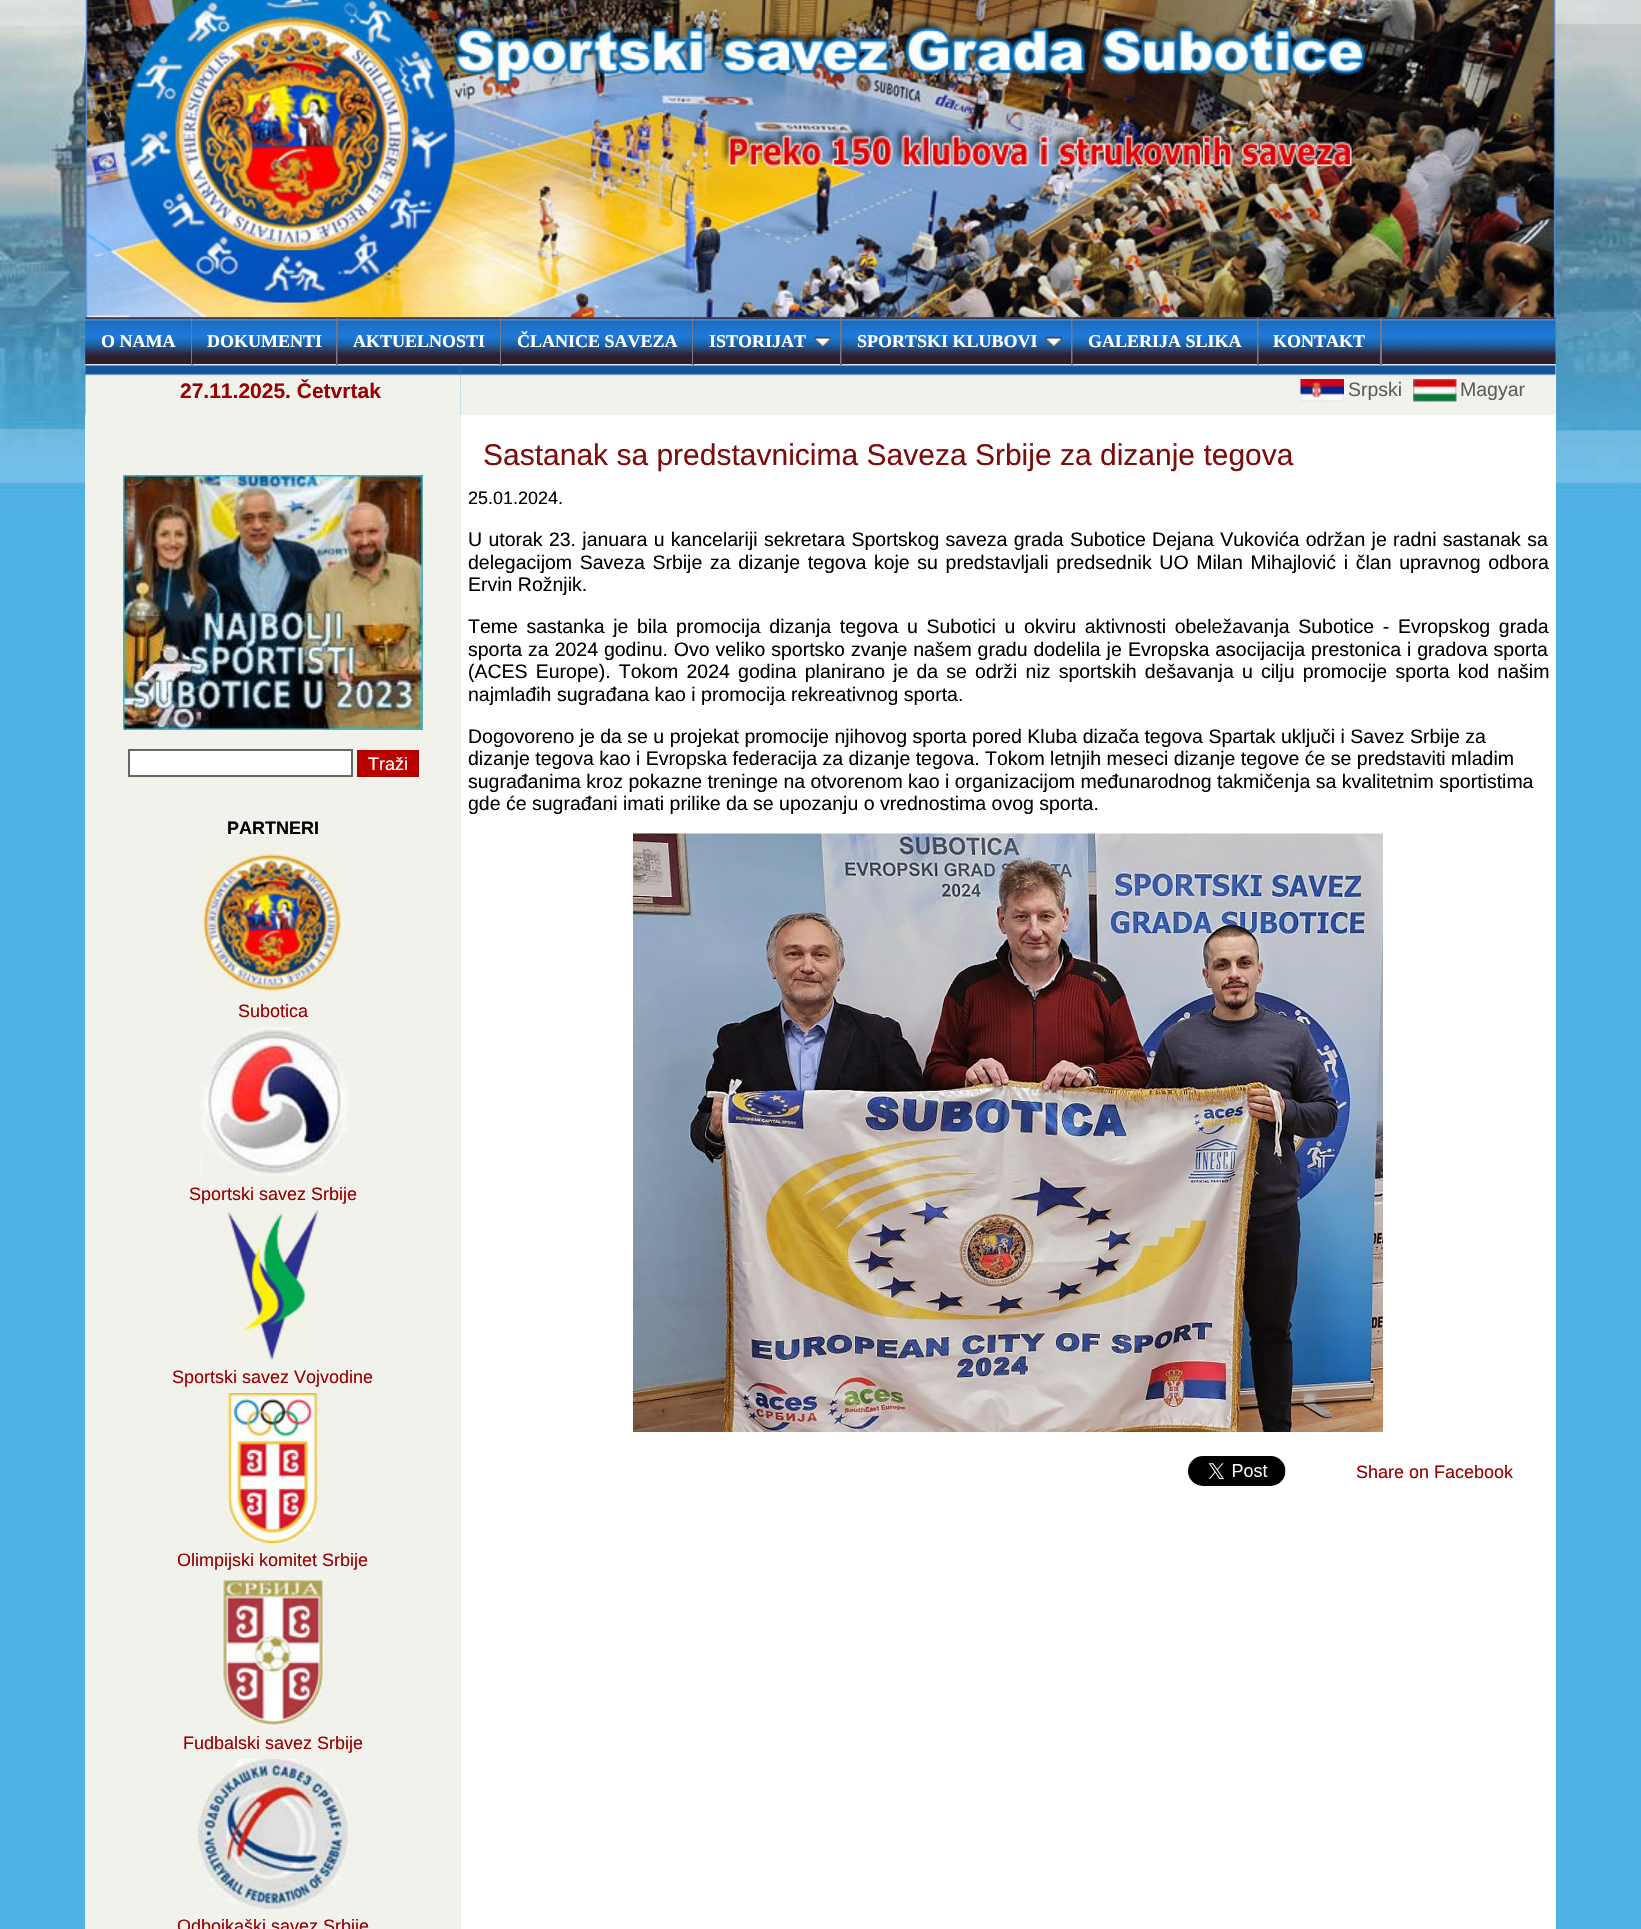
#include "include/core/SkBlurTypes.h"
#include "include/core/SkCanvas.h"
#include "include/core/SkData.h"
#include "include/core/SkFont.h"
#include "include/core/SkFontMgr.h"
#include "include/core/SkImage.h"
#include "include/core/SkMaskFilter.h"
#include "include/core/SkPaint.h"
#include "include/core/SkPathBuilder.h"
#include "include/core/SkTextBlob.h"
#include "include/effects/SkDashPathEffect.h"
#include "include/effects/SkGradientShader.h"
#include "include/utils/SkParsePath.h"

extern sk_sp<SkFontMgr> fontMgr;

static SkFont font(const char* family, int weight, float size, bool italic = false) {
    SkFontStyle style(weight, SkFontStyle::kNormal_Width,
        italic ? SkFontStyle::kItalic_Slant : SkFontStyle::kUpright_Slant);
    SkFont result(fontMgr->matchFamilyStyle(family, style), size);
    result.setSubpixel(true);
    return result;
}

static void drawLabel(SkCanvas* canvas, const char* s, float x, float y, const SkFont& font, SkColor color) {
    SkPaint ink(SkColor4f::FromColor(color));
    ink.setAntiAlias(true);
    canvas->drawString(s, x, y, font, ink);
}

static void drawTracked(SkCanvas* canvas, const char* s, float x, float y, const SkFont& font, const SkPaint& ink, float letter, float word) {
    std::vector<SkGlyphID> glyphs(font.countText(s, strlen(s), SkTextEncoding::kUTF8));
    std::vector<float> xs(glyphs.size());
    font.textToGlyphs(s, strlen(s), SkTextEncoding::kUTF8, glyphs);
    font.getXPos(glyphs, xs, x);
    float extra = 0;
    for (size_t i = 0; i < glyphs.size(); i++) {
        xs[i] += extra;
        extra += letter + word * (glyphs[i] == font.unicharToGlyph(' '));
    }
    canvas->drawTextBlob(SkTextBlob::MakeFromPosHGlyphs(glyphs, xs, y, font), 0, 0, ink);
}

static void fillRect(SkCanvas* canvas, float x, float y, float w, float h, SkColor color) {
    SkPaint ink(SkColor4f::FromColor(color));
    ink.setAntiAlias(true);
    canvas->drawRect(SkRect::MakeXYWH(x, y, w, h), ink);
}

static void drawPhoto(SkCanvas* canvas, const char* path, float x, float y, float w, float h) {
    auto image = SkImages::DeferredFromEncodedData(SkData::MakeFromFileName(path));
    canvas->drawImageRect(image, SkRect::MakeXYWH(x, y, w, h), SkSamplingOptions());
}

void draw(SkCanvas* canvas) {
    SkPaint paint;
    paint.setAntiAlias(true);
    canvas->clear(0xFFFFFFFF);
    drawPhoto(canvas, "assets/img1.png", 0, 0, 1641, 1929);
    drawPhoto(canvas, "assets/img3.png", 85, 317, 1471, 47);
    drawPhoto(canvas, "assets/img2.png", 85, 0, 1471, 318);
    drawPhoto(canvas, "assets/img4.png", 85, 317, 107, 47);
    drawPhoto(canvas, "assets/img14.png", 85, 364, 376, 51);
    fillRect(canvas, 191, 318, 2, 47, 0xFF777788);
    SkFont font1 = font("Liberation Serif", 700, 18);
    drawLabel(canvas, "O NAMA", 101, 347, font1, 0xFFFFFFFF);
    drawPhoto(canvas, "assets/img5.png", 192, 317, 146, 47);
    fillRect(canvas, 336, 318, 2, 47, 0xFF777788);
    drawLabel(canvas, "DOKUMENTI", 207, 347, font1, 0xFFFFFFFF);
    drawPhoto(canvas, "assets/img6.png", 337, 317, 164, 47);
    fillRect(canvas, 461, 365, 1095, 1564, 0xFFFFFFFF);
    drawPhoto(canvas, "assets/img15.png", 460, 364, 1096, 51);
    fillRect(canvas, 500, 318, 2, 47, 0xFF777788);
    drawLabel(canvas, "AKTUELNOSTI", 353, 347, font1, 0xFFFFFFFF);
    drawPhoto(canvas, "assets/img7.png", 501, 317, 192, 47);
    fillRect(canvas, 692, 318, 2, 47, 0xFF777788);
    drawLabel(canvas, "ČLANICE SAVEZA", 517, 347, font1, 0xFFFFFFFF);
    drawPhoto(canvas, "assets/img8.png", 693, 317, 149, 47);
    fillRect(canvas, 840, 318, 2, 47, 0xFF777788);
    drawLabel(canvas, "ISTORIJAT", 709, 347, font1, 0xFFFFFFFF);
    drawPhoto(canvas, "assets/img9.png", 814, 336, 17, 12);
    drawPhoto(canvas, "assets/img10.png", 841, 317, 232, 47);
    fillRect(canvas, 1071, 318, 2, 47, 0xFF777788);
    drawLabel(canvas, "SPORTSKI KLUBOVI", 857, 347, font1, 0xFFFFFFFF);
    drawPhoto(canvas, "assets/img11.png", 1045, 336, 17, 12);
    drawPhoto(canvas, "assets/img12.png", 1072, 317, 187, 47);
    fillRect(canvas, 1257, 318, 2, 47, 0xFF777788);
    drawLabel(canvas, "GALERIJA SLIKA", 1088, 347, font1, 0xFFFFFFFF);
    drawPhoto(canvas, "assets/img13.png", 1258, 317, 124, 47);
    fillRect(canvas, 1380, 318, 2, 47, 0xFF777788);
    drawLabel(canvas, "KONTAKT", 1273, 347, font1, 0xFFFFFFFF);
    SkFont font2 = font("Liberation Sans", 700, 21);
    drawLabel(canvas, "27.11.2025. Četvrtak", 180, 398, font2, 0xFF990000);
    drawPhoto(canvas, "assets/img16.png", 1300, 379, 44, 23);
    SkFont font3 = font("Liberation Sans", 400, 19.5f);
    drawLabel(canvas, "Srpski", 1348, 396, font3, 0xFF5D5D5D);
    drawPhoto(canvas, "assets/img17.png", 1413, 379, 44, 23);
    drawLabel(canvas, "Magyar", 1460, 396, font3, 0xFF5D5D5D);
    fillRect(canvas, 85, 415, 376, 1514, 0xFFF1F2EC);
    drawPhoto(canvas, "assets/img18.png", 123, 475, 300, 255);
    paint.setColor(0xFFFFFFFF);
    canvas->drawRect(SkRect::MakeXYWH(129, 750, 223, 26), paint);
    paint.setStroke(true);
    paint.setStrokeWidth(2);
    paint.setColor(0xFF666666);
    canvas->drawRect(SkRect::MakeXYWH(129, 750, 223, 26), paint);
    paint.setStroke(false);
    paint.setColor(0xFFBB0000);
    canvas->drawRect(SkRect::MakeXYWH(358, 751, 60, 25), paint);
    paint.setStroke(true);
    paint.setColor(0xFFAA0000);
    canvas->drawRect(SkRect::MakeXYWH(358, 751, 60, 25), paint);
    SkFont font4 = font("Liberation Sans", 400, 18);
    drawLabel(canvas, "Traži", 368, 770, font4, 0xFFFFFFFF);
    SkFont font5 = font("Liberation Sans", 700, 18);
    drawLabel(canvas, "PARTNERI", 227, 834, font5, 0xFF000000);
    drawPhoto(canvas, "assets/img19.png", 198, 844, 148, 150);
    drawLabel(canvas, "Subotica", 238, 1017, font4, 0xFF990000);
    drawPhoto(canvas, "assets/img20.png", 200, 1027, 148, 150);
    drawLabel(canvas, "Sportski savez Srbije", 189, 1200, font4, 0xFF990000);
    drawPhoto(canvas, "assets/img21.png", 221, 1210, 98, 150);
    drawLabel(canvas, "Sportski savez Vojvodine", 172, 1383, font4, 0xFF990000);
    drawPhoto(canvas, "assets/img22.png", 221, 1393, 107, 150);
    drawLabel(canvas, "Olimpijski komitet Srbije", 177, 1566, font4, 0xFF990000);
    drawPhoto(canvas, "assets/img23.png", 222, 1576, 108, 150);
    drawLabel(canvas, "Fudbalski savez Srbije", 183, 1749, font4, 0xFF990000);
    drawPhoto(canvas, "assets/img24.png", 198, 1759, 150, 150);
    drawLabel(canvas, "Odbojkaški savez Srbije", 177, 1932, font4, 0xFF990000);
    SkFont font6 = font("Liberation Sans", 400, 30);
    drawLabel(canvas, "Sastanak sa predstavnicima Saveza Srbije za dizanje tegova", 483, 465, font6, 0xFF7C0D0D);
    drawLabel(canvas, "25.01.2024.", 468, 504, font4, 0xFF000000);
    paint.setStroke(false);
    paint.setColor(0xFF000000);
    drawTracked(canvas, "U utorak 23. januara u kancelariji sekretara Sportskog saveza grada Subotice Dejana Vukovića održan je radni sastanak sa", 468, 546, font3, paint, 0, 0.9f);
    drawTracked(canvas, "delegacijom Saveza Srbije za dizanje tegova koje su predstavljali predsednik UO Milan Mihajlović i član upravnog odbora", 468, 569, font3, paint, 0, 2.25f);
    drawLabel(canvas, "Ervin Rožnjik.", 468, 591, font3, 0xFF000000);
    drawTracked(canvas, "Teme sastanka je bila promocija dizanja tegova u Subotici u okviru aktivnosti obeležavanja Subotice - Evropskog grada", 468, 633, font3, paint, 0, 3.25f);
    drawTracked(canvas, "sporta za 2024 godinu. Ovo veliko sportsko zvanje našem gradu dodelila je", 468, 656, font3, paint, 0, 0.5f);
    drawTracked(canvas, "Evropska asocijacija prestonica i gradova sporta", 1128, 656, font3, paint, 0, 0.5f);
    drawTracked(canvas, "(ACES Europe). Tokom 2024 godina planirano je da se održi niz sportskih dešavanja u cilju promocije sporta kod našim", 468, 678, font3, paint, 0, 2.75f);
    drawLabel(canvas, "najmlađih sugrađana kao i promocija rekreativnog sporta.", 468, 701, font3, 0xFF000000);
    drawLabel(canvas, "Dogovoreno je da se u projekat promocije njihovog sporta pored Kluba dizača tegova Spartak uključi i Savez Srbije za", 468, 743, font3, 0xFF000000);
    drawLabel(canvas, "dizanje tegova kao i Evropska federacija za dizanje tegova. Tokom letnjih meseci dizanje tegove će se predstaviti mladim", 468, 765, font3, 0xFF000000);
    drawLabel(canvas, "sugrađanima kroz pokazne treninge na otvorenom kao i organizacijom međunarodnog takmičenja sa kvalitetnim sportistima", 468, 788, font3, 0xFF000000);
    drawLabel(canvas, "gde će sugrađani imati prilike da se upozanju o vrednostima ovog sporta.", 468, 810, font3, 0xFF000000);
    drawPhoto(canvas, "assets/img25.png", 633, 833, 750, 599);
    drawPhoto(canvas, "assets/img26.png", 1188, 1456, 98, 30);
    drawLabel(canvas, "Share on Facebook", 1356, 1478, font4, 0xFF990000);
}
